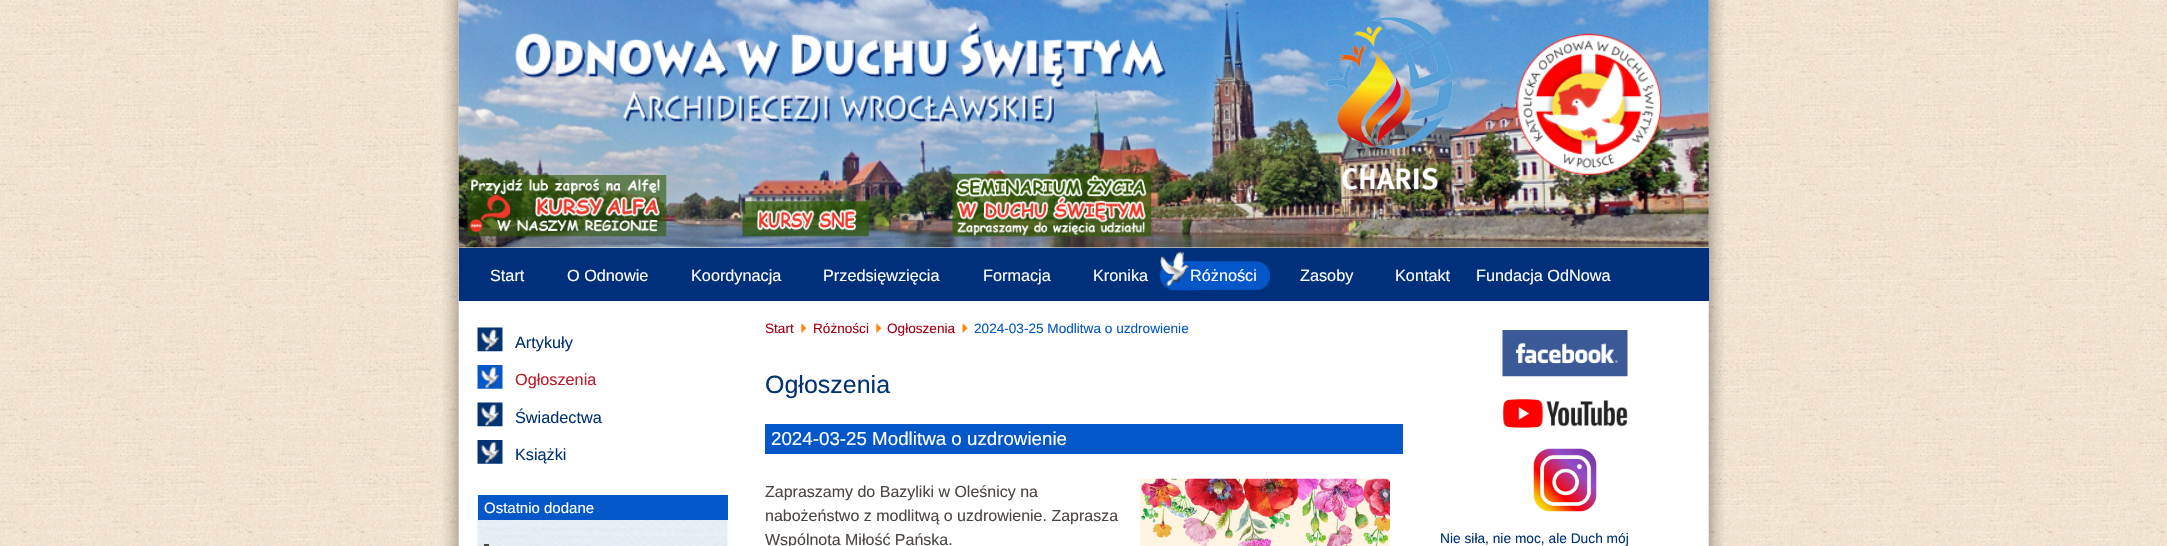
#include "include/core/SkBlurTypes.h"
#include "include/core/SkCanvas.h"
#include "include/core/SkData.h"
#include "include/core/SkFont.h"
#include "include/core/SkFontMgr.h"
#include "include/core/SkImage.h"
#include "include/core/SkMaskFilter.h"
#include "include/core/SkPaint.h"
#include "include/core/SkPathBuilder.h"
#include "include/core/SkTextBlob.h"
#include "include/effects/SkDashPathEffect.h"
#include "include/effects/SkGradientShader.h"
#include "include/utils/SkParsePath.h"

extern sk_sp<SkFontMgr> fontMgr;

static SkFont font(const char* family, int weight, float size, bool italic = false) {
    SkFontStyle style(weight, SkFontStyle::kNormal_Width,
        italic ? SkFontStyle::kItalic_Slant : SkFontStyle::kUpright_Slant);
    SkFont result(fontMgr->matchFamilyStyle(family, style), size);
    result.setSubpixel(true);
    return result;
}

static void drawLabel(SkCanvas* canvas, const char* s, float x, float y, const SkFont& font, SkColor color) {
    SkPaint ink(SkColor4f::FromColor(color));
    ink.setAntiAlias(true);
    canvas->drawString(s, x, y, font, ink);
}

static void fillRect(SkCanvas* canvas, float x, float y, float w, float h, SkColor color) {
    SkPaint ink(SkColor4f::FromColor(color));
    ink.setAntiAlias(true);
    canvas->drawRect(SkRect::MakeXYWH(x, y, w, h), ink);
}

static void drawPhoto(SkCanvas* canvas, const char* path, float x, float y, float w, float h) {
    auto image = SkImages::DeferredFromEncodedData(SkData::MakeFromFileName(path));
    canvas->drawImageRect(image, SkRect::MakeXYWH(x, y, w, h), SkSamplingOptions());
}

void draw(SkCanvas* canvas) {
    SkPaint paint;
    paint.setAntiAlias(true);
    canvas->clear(0xFFFFFFFF);
    drawPhoto(canvas, "assets/img1.png", 0, 0, 2167, 546);
    drawPhoto(canvas, "assets/img2.png", 443, 0, 1281, 546);
    drawPhoto(canvas, "assets/img3.png", 458, 0, 1251, 248);
    drawPhoto(canvas, "assets/img4.png", 515, 22, 651, 102);
    drawPhoto(canvas, "assets/img5.png", 1325, 17, 128, 173);
    drawPhoto(canvas, "assets/img6.png", 1516, 33, 146, 142);
    drawPhoto(canvas, "assets/img7.png", 467, 175, 200, 62);
    drawPhoto(canvas, "assets/img8.png", 742, 201, 127, 36);
    drawPhoto(canvas, "assets/img9.png", 952, 173, 200, 64);
    fillRect(canvas, 459, 248, 1250, 53, 0xFF00307C);
    SkFont font1 = font("Liberation Sans", 400, 16.25f);
    drawLabel(canvas, "Start", 490, 281, font1, 0xFFFFFFFF);
    drawLabel(canvas, "O Odnowie", 567, 281, font1, 0xFFFFFFFF);
    drawLabel(canvas, "Koordynacja", 691, 281, font1, 0xFFFFFFFF);
    drawLabel(canvas, "Przedsięwzięcia", 823, 281, font1, 0xFFFFFFFF);
    drawLabel(canvas, "Formacja", 983, 281, font1, 0xFFFFFFFF);
    drawLabel(canvas, "Kronika", 1093, 281, font1, 0xFFFFFFFF);
    drawPhoto(canvas, "assets/img10.png", 1160, 261, 110, 30);
    drawPhoto(canvas, "assets/img11.png", 1160, 251, 38, 40);
    drawLabel(canvas, "Różności", 1190, 281, font1, 0xFFFFFFFF);
    drawLabel(canvas, "Zasoby", 1300, 281, font1, 0xFFFFFFFF);
    drawLabel(canvas, "Kontakt", 1395, 281, font1, 0xFFFFFFFF);
    drawLabel(canvas, "Fundacja OdNowa", 1476, 281, font1, 0xFFFFFFFF);
    drawPhoto(canvas, "assets/img12.png", 477, 327, 26, 25);
    drawLabel(canvas, "Artykuły", 515, 348, font1, 0xFF023373);
    drawPhoto(canvas, "assets/img13.png", 477, 365, 26, 24);
    drawLabel(canvas, "Ogłoszenia", 515, 385, font1, 0xFFBF1C29);
    drawPhoto(canvas, "assets/img12.png", 477, 402, 26, 25);
    drawLabel(canvas, "Świadectwa", 515, 423, font1, 0xFF023373);
    drawPhoto(canvas, "assets/img14.png", 477, 440, 26, 24);
    drawLabel(canvas, "Książki", 515, 460, font1, 0xFF023373);
    drawPhoto(canvas, "assets/img15.png", 477, 495, 251, 51);
    fillRect(canvas, 478, 495, 250, 25, 0xFF0357C9);
    SkFont font2 = font("Liberation Sans", 400, 15);
    drawLabel(canvas, "Ostatnio dodane", 484, 513, font2, 0xFFFFFFFF);
    fillRect(canvas, 484, 544, 5, 2, 0xFF4C4642);
    SkFont font3 = font("Liberation Sans", 400, 13.6f);
    drawLabel(canvas, "Start", 765, 333, font3, 0xFFA80013);
    drawPhoto(canvas, "assets/img16.png", 801, 323, 6, 10);
    drawLabel(canvas, "Różności", 813, 333, font3, 0xFFA80013);
    drawPhoto(canvas, "assets/img16.png", 876, 323, 6, 10);
    drawLabel(canvas, "Ogłoszenia", 887, 333, font3, 0xFFA80013);
    drawPhoto(canvas, "assets/img17.png", 962, 323, 6, 10);
    drawLabel(canvas, "2024-03-25 Modlitwa o uzdrowienie", 974, 333, font3, 0xFF0357C9);
    SkFont font4 = font("Liberation Sans", 400, 25);
    drawLabel(canvas, "Ogłoszenia", 765, 393, font4, 0xFF023373);
    fillRect(canvas, 765, 424, 638, 30, 0xFF0357C9);
    SkFont font5 = font("Liberation Sans", 400, 18.75f);
    drawLabel(canvas, "2024-03-25 Modlitwa o uzdrowienie", 771, 445, font5, 0xFFFFFFFF);
    SkFont font6 = font("Liberation Sans", 400, 16);
    drawLabel(canvas, "Zapraszamy do Bazyliki w Oleśnicy na", 765, 497, font6, 0xFF4C4642);
    drawPhoto(canvas, "assets/img18.png", 1140, 478, 250, 68);
    drawLabel(canvas, "nabożeństwo z modlitwą o uzdrowienie. Zaprasza", 765, 521, font6, 0xFF4C4642);
    drawLabel(canvas, "Wspólnota Miłość Pańska.", 765, 545, font6, 0xFF4C4642);
    drawPhoto(canvas, "assets/img19.png", 1502, 330, 126, 47);
    drawPhoto(canvas, "assets/img20.png", 1502, 399, 126, 31);
    drawPhoto(canvas, "assets/img21.png", 1533, 448, 64, 64);
    SkFont font7 = font("Liberation Sans", 400, 13.75f);
    drawLabel(canvas, "Nie siła, nie moc, ale Duch mój", 1440, 543, font7, 0xFF023373);
}
